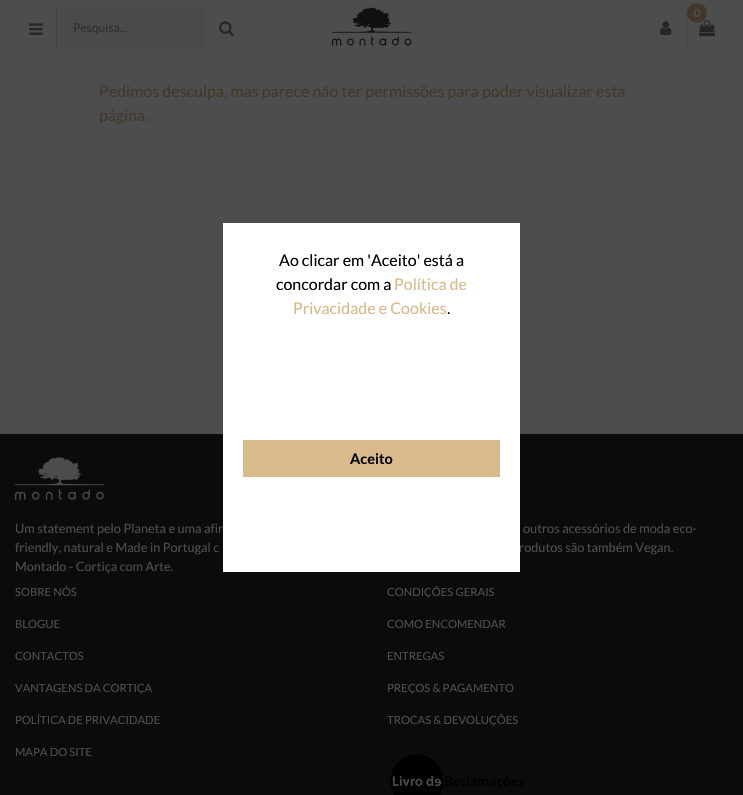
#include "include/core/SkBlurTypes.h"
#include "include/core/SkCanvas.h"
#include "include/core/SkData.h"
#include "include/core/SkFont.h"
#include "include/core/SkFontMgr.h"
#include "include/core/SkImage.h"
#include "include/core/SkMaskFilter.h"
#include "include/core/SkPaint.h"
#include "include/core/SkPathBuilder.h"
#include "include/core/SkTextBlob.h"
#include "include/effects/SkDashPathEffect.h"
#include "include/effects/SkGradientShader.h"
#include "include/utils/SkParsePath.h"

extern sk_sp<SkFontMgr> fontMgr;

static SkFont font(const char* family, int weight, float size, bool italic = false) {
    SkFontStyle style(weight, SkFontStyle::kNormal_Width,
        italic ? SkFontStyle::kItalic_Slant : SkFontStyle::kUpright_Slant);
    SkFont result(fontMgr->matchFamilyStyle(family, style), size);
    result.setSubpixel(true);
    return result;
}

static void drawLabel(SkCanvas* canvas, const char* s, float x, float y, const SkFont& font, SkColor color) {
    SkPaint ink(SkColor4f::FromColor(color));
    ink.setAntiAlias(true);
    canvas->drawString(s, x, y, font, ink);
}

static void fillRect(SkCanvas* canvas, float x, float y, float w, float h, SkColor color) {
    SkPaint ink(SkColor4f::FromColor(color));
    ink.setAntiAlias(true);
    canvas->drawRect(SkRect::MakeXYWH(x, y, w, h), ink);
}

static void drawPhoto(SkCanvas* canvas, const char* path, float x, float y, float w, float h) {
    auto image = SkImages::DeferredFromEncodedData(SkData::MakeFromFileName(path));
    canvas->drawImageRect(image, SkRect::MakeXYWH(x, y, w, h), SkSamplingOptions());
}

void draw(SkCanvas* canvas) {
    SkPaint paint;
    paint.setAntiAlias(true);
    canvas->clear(0xFF4D4D4D);
    drawPhoto(canvas, "assets/img1.png", 332, 7, 80, 39);
    fillRect(canvas, 686, 8, 1, 40, 0xFF424242);
    drawPhoto(canvas, "assets/img2.png", 660, 21, 12, 14);
    drawPhoto(canvas, "assets/img3.png", 699, 20, 16, 17);
    paint.setColor(0xFF41382A);
    canvas->drawCircle(697, 13, 10, paint);
    SkFont font1 = font("Lato", 700, 11.25f);
    drawLabel(canvas, "0", 694, 17, font1, 0xFF4D4D4D);
    drawPhoto(canvas, "assets/img4.png", 29, 23, 14, 12);
    fillRect(canvas, 56, 8, 1, 40, 0xFF424242);
    fillRect(canvas, 57, 8, 149, 40, 0xFF4A4A4A);
    SkFont font2 = font("Lato", 400, 12);
    drawLabel(canvas, "Pesquisa...", 73, 32, font2, 0xFF2E2E2E);
    drawPhoto(canvas, "assets/img5.png", 219, 21, 15, 16);
    SkFont font3 = font("Lato", 400, 16);
    drawLabel(canvas, "Pedimos desculpa, mas parece não ter permissões para poder visualizar esta", 99, 97, font3, 0xFF41382A);
    drawLabel(canvas, "página.", 99, 121, font3, 0xFF41382A);
    fillRect(canvas, 0, 434, 743, 361, 0xFF0B0B0B);
    drawPhoto(canvas, "assets/img6.png", 15, 457, 89, 43);
    SkFont font4 = font("Lato", 400, 12.75f);
    drawLabel(canvas, "Um statement pelo Planeta e uma afir", 15, 533, font4, 0xFF4D4D4D);
    drawLabel(canvas, "outros acessórios de moda eco-", 523, 533, font4, 0xFF4D4D4D);
    drawLabel(canvas, "friendly, natural e Made in Portugal c", 15, 552, font4, 0xFF4D4D4D);
    drawLabel(canvas, "rodutos são também Vegan.", 519, 552, font4, 0xFF4D4D4D);
    drawLabel(canvas, "Montado - Cortiça com Arte.", 15, 571, font4, 0xFF4D4D4D);
    SkFont font5 = font("Lato", 400, 11.25f);
    drawLabel(canvas, "SOBRE NÓS", 15, 596, font5, 0xFF4D4D4D);
    drawLabel(canvas, "BLOGUE", 15, 628, font5, 0xFF4D4D4D);
    drawLabel(canvas, "CONTACTOS", 15, 660, font5, 0xFF4D4D4D);
    drawLabel(canvas, "VANTAGENS DA CORTIÇA", 15, 692, font5, 0xFF4D4D4D);
    drawLabel(canvas, "POLÍTICA DE PRIVACIDADE", 15, 724, font5, 0xFF4D4D4D);
    drawLabel(canvas, "MAPA DO SITE", 15, 756, font5, 0xFF4D4D4D);
    drawLabel(canvas, "CONDIÇÕES GERAIS", 387, 596, font5, 0xFF4D4D4D);
    drawLabel(canvas, "COMO ENCOMENDAR", 387, 628, font5, 0xFF4D4D4D);
    drawLabel(canvas, "ENTREGAS", 387, 660, font5, 0xFF4D4D4D);
    drawLabel(canvas, "PREÇOS & PAGAMENTO", 387, 692, font5, 0xFF4D4D4D);
    drawLabel(canvas, "TROCAS & DEVOLUÇÕES", 387, 724, font5, 0xFF4D4D4D);
    drawPhoto(canvas, "assets/img7.png", 390, 754, 134, 41);
    fillRect(canvas, 223, 223, 297, 349, 0xFFFFFFFF);
    drawLabel(canvas, "Ao clicar em 'Aceito' está a", 279, 266, font3, 0xFF000000);
    drawLabel(canvas, "concordar com a", 276, 290, font3, 0xFF000000);
    drawLabel(canvas, "Política de", 394, 290, font3, 0xFFD9BA8B);
    drawLabel(canvas, "Privacidade e Cookies", 293, 314, font3, 0xFFD9BA8B);
    drawLabel(canvas, ".", 447, 314, font3, 0xFF000000);
    fillRect(canvas, 243, 440, 257, 37, 0xFFD9BA8B);
    SkFont font6 = font("Lato", 700, 14.5f);
    drawLabel(canvas, "Aceito", 350, 464, font6, 0xFF000000);
}
